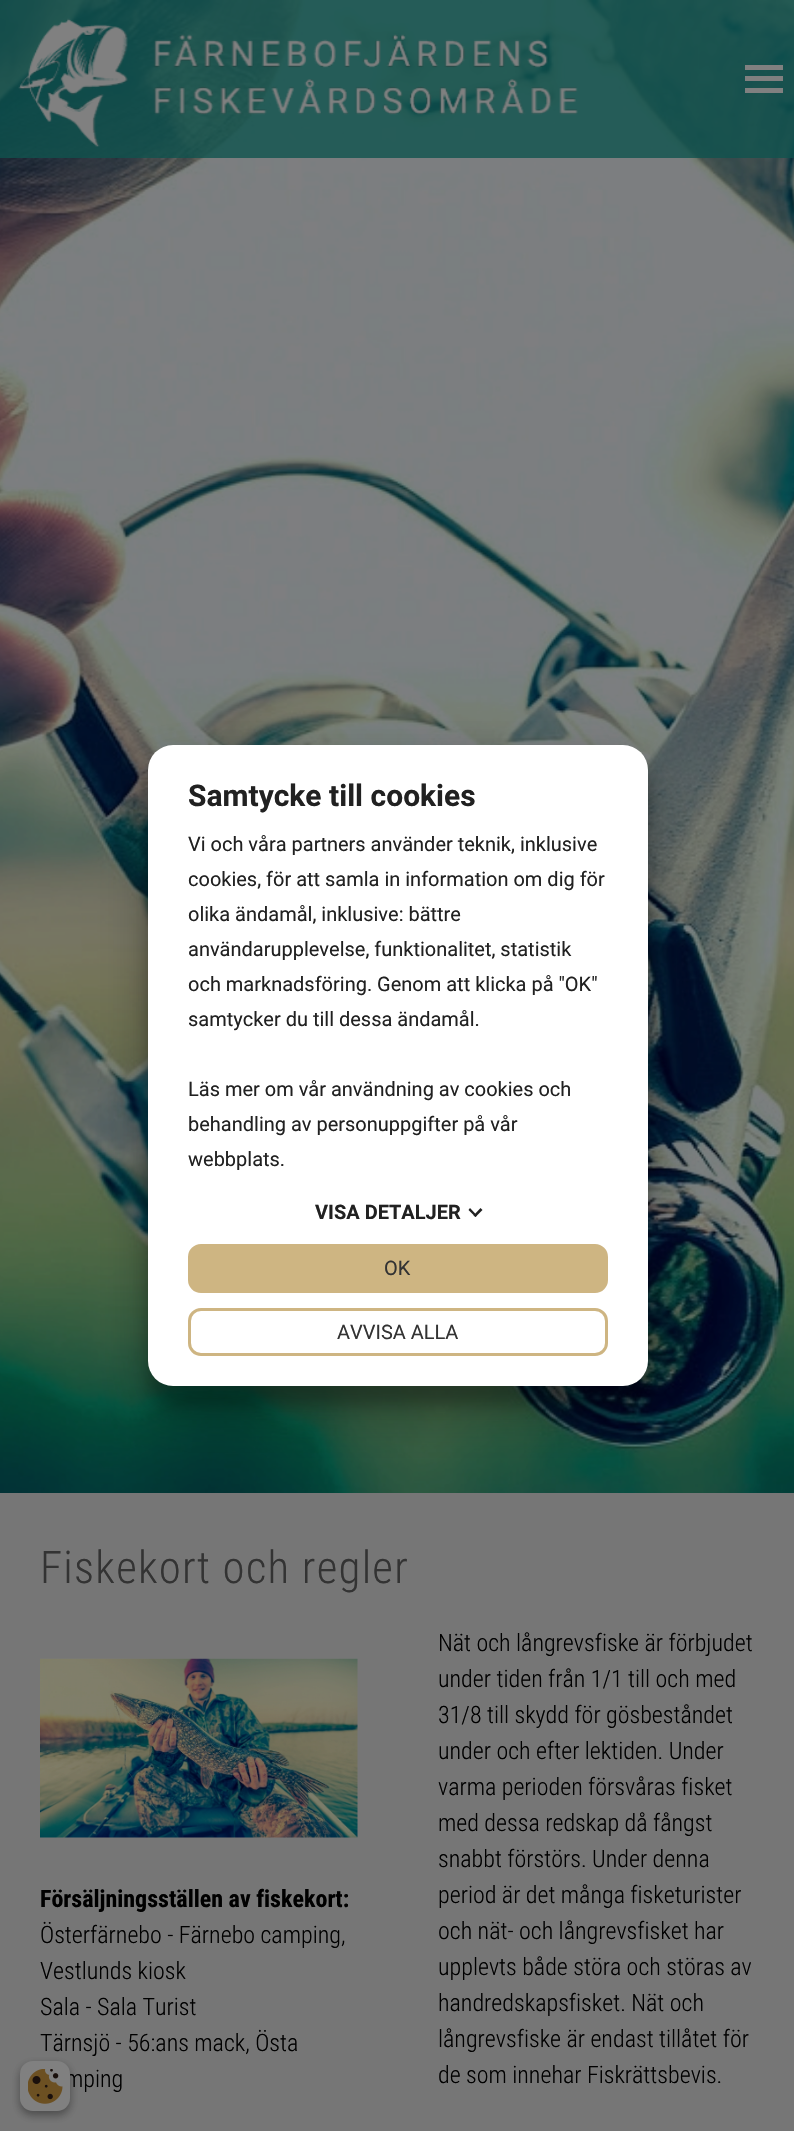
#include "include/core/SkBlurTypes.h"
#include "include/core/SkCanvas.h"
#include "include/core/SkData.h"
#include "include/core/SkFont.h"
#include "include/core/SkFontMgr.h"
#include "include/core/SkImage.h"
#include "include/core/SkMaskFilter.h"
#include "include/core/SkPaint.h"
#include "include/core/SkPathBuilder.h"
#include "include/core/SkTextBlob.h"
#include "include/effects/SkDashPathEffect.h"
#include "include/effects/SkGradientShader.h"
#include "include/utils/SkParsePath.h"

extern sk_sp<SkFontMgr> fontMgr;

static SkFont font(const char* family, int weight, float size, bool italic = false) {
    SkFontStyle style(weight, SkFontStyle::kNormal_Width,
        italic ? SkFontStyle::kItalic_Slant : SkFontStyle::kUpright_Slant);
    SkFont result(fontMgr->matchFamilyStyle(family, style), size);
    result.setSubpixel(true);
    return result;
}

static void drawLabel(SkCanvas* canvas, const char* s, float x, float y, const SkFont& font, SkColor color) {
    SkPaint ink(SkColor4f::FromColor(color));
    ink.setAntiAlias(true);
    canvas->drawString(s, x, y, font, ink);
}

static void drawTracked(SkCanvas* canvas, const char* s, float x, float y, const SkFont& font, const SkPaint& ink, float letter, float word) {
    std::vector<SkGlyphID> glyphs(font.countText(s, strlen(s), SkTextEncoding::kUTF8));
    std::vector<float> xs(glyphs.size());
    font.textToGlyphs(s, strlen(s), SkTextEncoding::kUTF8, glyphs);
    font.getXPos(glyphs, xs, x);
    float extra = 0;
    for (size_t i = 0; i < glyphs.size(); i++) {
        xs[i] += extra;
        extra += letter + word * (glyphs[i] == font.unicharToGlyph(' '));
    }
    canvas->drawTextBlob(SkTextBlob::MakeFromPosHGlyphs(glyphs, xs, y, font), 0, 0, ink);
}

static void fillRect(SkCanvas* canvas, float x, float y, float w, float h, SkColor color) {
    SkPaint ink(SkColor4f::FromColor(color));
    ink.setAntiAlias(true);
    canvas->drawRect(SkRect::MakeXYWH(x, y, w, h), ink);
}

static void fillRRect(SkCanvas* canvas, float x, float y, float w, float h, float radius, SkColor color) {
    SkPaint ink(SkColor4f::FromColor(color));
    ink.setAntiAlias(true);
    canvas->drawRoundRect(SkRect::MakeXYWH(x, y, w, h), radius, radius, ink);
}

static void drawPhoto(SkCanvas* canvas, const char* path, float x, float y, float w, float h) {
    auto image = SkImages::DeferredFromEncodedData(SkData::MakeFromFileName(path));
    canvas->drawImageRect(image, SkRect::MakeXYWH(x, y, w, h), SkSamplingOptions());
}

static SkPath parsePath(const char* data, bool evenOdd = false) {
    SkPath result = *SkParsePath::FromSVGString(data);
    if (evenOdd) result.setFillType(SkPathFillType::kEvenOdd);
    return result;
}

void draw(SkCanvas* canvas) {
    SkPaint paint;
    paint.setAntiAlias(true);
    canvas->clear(0xFFFFFFFF);
    drawPhoto(canvas, "assets/img2.png", 0, 0, 794, 1493);
    fillRect(canvas, 0, 0, 794, 158, 0xCC0F534E);
    drawPhoto(canvas, "assets/img1.png", 18, 18, 560, 129);
    fillRect(canvas, 745, 65, 38, 5, 0xFF808080);
    fillRect(canvas, 745, 76, 38, 5, 0xFF808080);
    fillRect(canvas, 745, 88, 38, 5, 0xFF808080);
    paint.setColor(0x38000000);
    paint.setMaskFilter(SkMaskFilter::MakeBlur(kNormal_SkBlurStyle, 7.5f));
    canvas->drawRoundRect(SkRect::MakeXYWH(148, 764, 500, 641), 25, 25, paint);
    paint.setMaskFilter(nullptr);
    paint.setColor(0x4D000000);
    paint.setMaskFilter(SkMaskFilter::MakeBlur(kNormal_SkBlurStyle, 24));
    canvas->drawRoundRect(SkRect::MakeXYWH(148, 769, 500, 641), 25, 25, paint);
    paint.setMaskFilter(nullptr);
    fillRRect(canvas, 148, 745, 500, 641, 25, 0xFFFFFFFF);
    SkFont font1 = font("Roboto", 700, 30);
    drawLabel(canvas, "Samtycke till cookies", 188, 806, font1, 0xFF212121);
    SkFont font2 = font("Roboto", 400, 20);
    drawLabel(canvas, "Vi och våra partners använder teknik, inklusive", 188, 851, font2, 0xFF212121);
    drawLabel(canvas, "cookies, för att samla in information om dig för", 188, 886, font2, 0xFF212121);
    drawLabel(canvas, "olika ändamål, inklusive: bättre", 188, 921, font2, 0xFF212121);
    drawLabel(canvas, "användarupplevelse, funktionalitet, statistik", 188, 956, font2, 0xFF212121);
    drawLabel(canvas, "och marknadsföring. Genom att klicka på \"OK\"", 188, 991, font2, 0xFF212121);
    drawLabel(canvas, "samtycker du till dessa ändamål.", 188, 1026, font2, 0xFF212121);
    drawLabel(canvas, "Läs mer om vår användning av cookies och", 188, 1096, font2, 0xFF212121);
    drawLabel(canvas, "behandling av personuppgifter på vår", 188, 1131, font2, 0xFF212121);
    drawLabel(canvas, "webbplats.", 188, 1166, font2, 0xFF212121);
    SkFont font3 = font("Roboto", 700, 20);
    drawLabel(canvas, "VISA DETALJER", 315, 1219, font3, 0xFF212121);
    paint.setColor(0xFF212121);
    canvas->drawPath(parsePath("M480.5 1208L482.5 1210L475.5 1217L473.5 1215.5Z"), paint);
    canvas->drawPath(parsePath("M470 1208L477 1215.5L475.5 1217L468.5 1210Z"), paint);
    paint.setColor(0xFFCEB582);
    canvas->drawRoundRect(SkRect::MakeXYWH(189.5f, 1245.5f, 417, 46), 11.5f, 11.5f, paint);
    paint.setStroke(true);
    paint.setStrokeWidth(3);
    canvas->drawRoundRect(SkRect::MakeXYWH(189.5f, 1245.5f, 417, 46), 11.5f, 11.5f, paint);
    drawLabel(canvas, "OK", 384, 1275, font2, 0xFF333333);
    canvas->drawRoundRect(SkRect::MakeXYWH(189.5f, 1309.5f, 417, 45), 11.5f, 11.5f, paint);
    drawLabel(canvas, "AVVISA ALLA", 337, 1339, font2, 0xFF333333);
    fillRect(canvas, 0, 1493, 794, 638, 0xFF767676);
    SkFont font4 = font("Roboto Condensed", 300, 45);
    paint.setStroke(false);
    paint.setColor(0xFF333333);
    drawTracked(canvas, "Fiskekort och regler", 40, 1583, font4, paint, 1.25f, 0);
    drawPhoto(canvas, "assets/img3.png", 40, 1658, 318, 180);
    SkFont font5 = font("Roboto Condensed", 700, 24);
    drawLabel(canvas, "Försäljningsställen av fiskekort:", 40, 1907, font5, 0xFF000000);
    SkFont font6 = font("Roboto Condensed", 300, 24);
    drawLabel(canvas, "Österfärnebo - Färnebo camping,", 40, 1943, font6, 0xFF000000);
    drawLabel(canvas, "Vestlunds kiosk", 40, 1979, font6, 0xFF000000);
    drawLabel(canvas, "Sala - Sala Turist", 40, 2015, font6, 0xFF000000);
    drawLabel(canvas, "Tärnsjö - 56:ans mack, Östa", 40, 2051, font6, 0xFF000000);
    drawLabel(canvas, "mping", 65, 2087, font6, 0xFF000000);
    drawLabel(canvas, "Nät och långrevsfiske är förbjudet", 438, 1651, font6, 0xFF000000);
    drawLabel(canvas, "under tiden från 1/1 till och med", 438, 1687, font6, 0xFF000000);
    drawLabel(canvas, "31/8 till skydd för gösbeståndet", 438, 1723, font6, 0xFF000000);
    drawLabel(canvas, "under och efter lektiden. Under", 438, 1759, font6, 0xFF000000);
    drawLabel(canvas, "varma perioden försvåras fisket", 438, 1795, font6, 0xFF000000);
    drawLabel(canvas, "med dessa redskap då fångst", 438, 1831, font6, 0xFF000000);
    drawLabel(canvas, "snabbt förstörs. Under denna", 438, 1867, font6, 0xFF000000);
    drawLabel(canvas, "period är det många fisketurister", 438, 1903, font6, 0xFF000000);
    drawLabel(canvas, "och nät- och långrevsfisket har", 438, 1939, font6, 0xFF000000);
    drawLabel(canvas, "upplevts både störa och störas av", 438, 1975, font6, 0xFF000000);
    drawLabel(canvas, "handredskapsfisket. Nät och", 438, 2011, font6, 0xFF000000);
    drawLabel(canvas, "långrevsfiske är endast tillåtet för", 438, 2047, font6, 0xFF000000);
    drawLabel(canvas, "de som innehar Fiskrättsbevis.", 438, 2083, font6, 0xFF000000);
    paint.setColor(0x3B000000);
    paint.setMaskFilter(SkMaskFilter::MakeBlur(kNormal_SkBlurStyle, 4));
    canvas->drawRoundRect(SkRect::MakeXYWH(20, 2065, 50, 50), 13, 13, paint);
    paint.setMaskFilter(nullptr);
    paint.setColor(0x29000000);
    paint.setMaskFilter(SkMaskFilter::MakeBlur(kNormal_SkBlurStyle, 4));
    canvas->drawRoundRect(SkRect::MakeXYWH(20, 2065, 50, 50), 13, 13, paint);
    paint.setMaskFilter(nullptr);
    fillRRect(canvas, 20, 2061, 50, 50, 13, 0xFF808080);
    drawPhoto(canvas, "assets/img4.png", 28, 2069, 35, 35);
}
